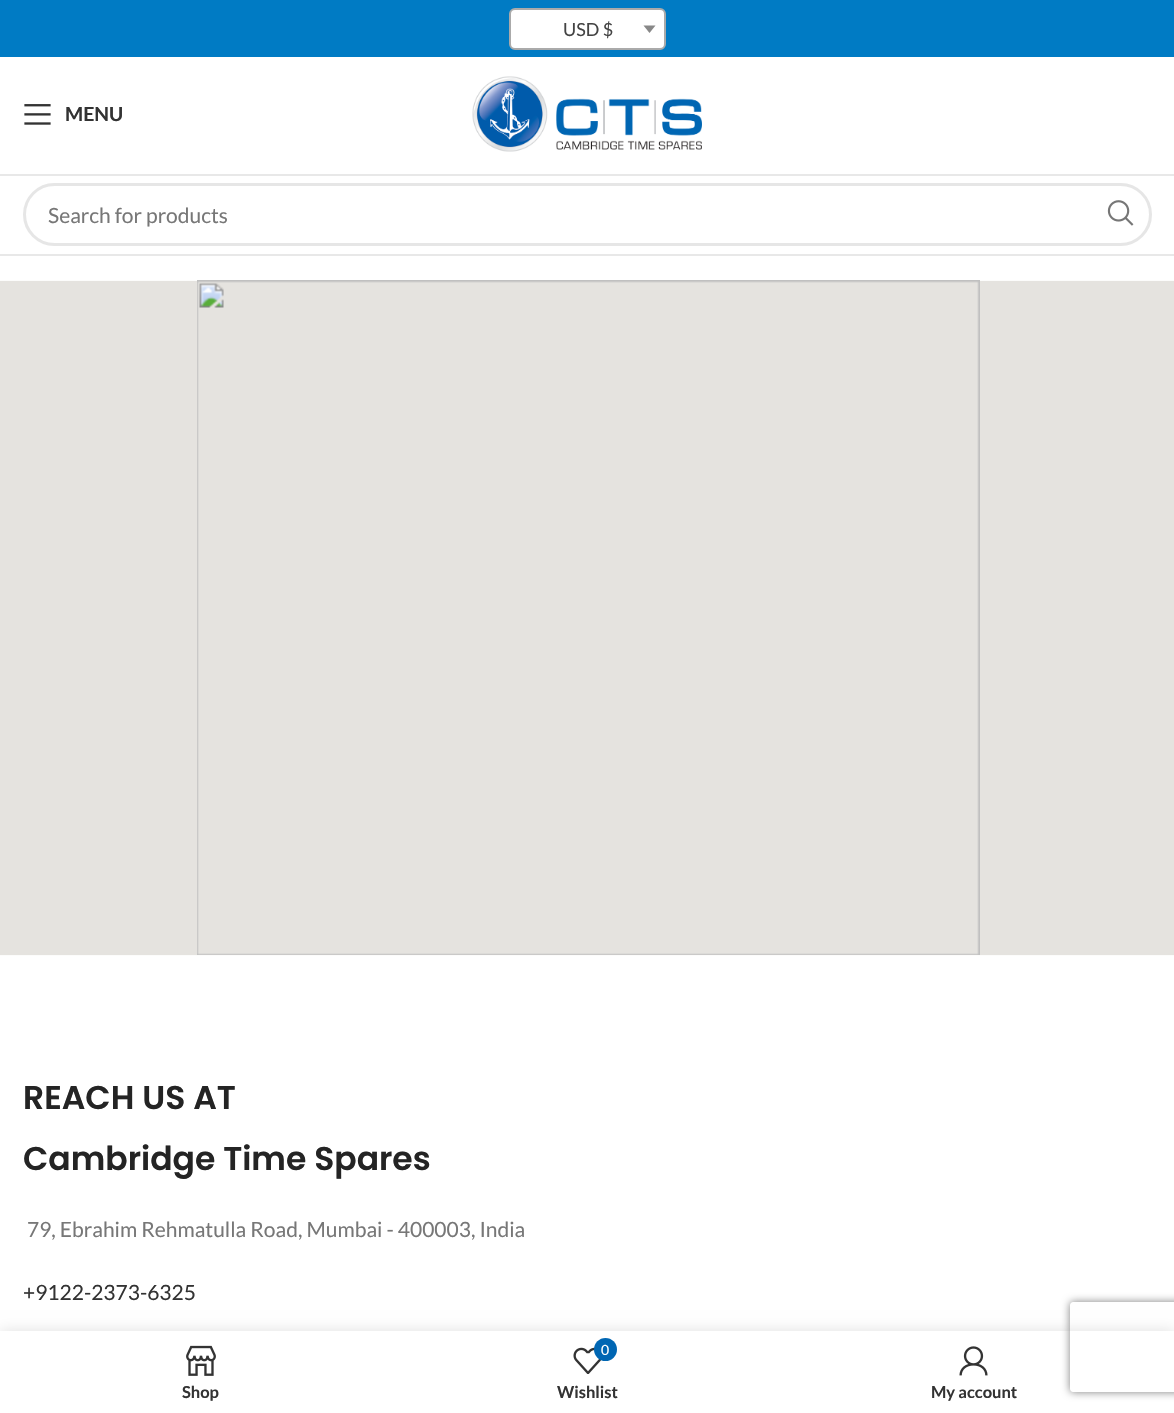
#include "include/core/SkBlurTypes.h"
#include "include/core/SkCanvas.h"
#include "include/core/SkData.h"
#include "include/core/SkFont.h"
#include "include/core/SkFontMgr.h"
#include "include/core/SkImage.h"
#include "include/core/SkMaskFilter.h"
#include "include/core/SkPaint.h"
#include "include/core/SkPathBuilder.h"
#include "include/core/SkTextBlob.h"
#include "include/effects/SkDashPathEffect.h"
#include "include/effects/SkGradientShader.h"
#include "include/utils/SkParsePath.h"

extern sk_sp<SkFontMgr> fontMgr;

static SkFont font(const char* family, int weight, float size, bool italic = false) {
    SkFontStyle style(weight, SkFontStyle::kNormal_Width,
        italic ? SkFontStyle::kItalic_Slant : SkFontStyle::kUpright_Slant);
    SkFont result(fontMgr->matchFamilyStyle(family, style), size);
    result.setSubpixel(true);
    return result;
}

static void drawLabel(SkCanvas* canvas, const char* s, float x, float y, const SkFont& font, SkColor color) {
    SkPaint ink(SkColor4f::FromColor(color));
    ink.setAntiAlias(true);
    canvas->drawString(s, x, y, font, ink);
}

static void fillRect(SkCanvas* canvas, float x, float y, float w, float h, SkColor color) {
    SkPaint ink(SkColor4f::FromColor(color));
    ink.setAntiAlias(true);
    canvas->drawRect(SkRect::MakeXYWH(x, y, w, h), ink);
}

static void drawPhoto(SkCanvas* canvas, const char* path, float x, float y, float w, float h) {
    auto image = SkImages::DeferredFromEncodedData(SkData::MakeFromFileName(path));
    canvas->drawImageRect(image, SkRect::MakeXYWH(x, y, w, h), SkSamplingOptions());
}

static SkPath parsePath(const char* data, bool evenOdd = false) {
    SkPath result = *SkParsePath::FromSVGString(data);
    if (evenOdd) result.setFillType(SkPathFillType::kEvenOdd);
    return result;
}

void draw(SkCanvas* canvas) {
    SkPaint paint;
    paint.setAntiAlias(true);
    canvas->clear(0xFFFFFFFF);
    fillRect(canvas, 0, 0, 1174, 57, 0xFF007BC4);
    paint.setColor(0xFFFFFFFF);
    canvas->drawRoundRect(SkRect::MakeXYWH(510, 9, 155, 40), 5, 5, paint);
    paint.setStroke(true);
    paint.setStrokeWidth(2);
    paint.setColor(0xFFAAAAAA);
    canvas->drawRoundRect(SkRect::MakeXYWH(510, 9, 155, 40), 5, 5, paint);
    SkFont font1 = font("Lato", 400, 18);
    drawLabel(canvas, "USD $", 563, 36, font1, 0xFF444444);
    paint.setStroke(false);
    paint.setColor(0xFF888888);
    canvas->drawPath(parsePath("M643.5 25.5H655.5L649.5 33Z"), paint);
    fillRect(canvas, 0, 174, 1174, 2, 0xFFE8E8E8);
    drawPhoto(canvas, "assets/img1.png", 24, 104, 27, 21);
    SkFont font2 = font("Lato", 700, 19.5f);
    drawLabel(canvas, "MENU", 65, 121, font2, 0xFF333333);
    drawPhoto(canvas, "assets/img2.png", 472, 76, 230, 76);
    fillRect(canvas, 0, 254, 1174, 2, 0xFFE8E8E8);
    paint.setStroke(true);
    paint.setStrokeWidth(3);
    paint.setColor(0xFFE6E6E6);
    canvas->drawRoundRect(SkRect::MakeXYWH(24.5f, 184.5f, 1126, 60), 30, 30, paint);
    SkFont font3 = font("Lato", 400, 21);
    drawLabel(canvas, "Search for products", 48, 223, font3, 0xFF777777);
    drawPhoto(canvas, "assets/img3.png", 1107, 200, 27, 26);
    drawPhoto(canvas, "assets/img4.png", 0, 280, 1174, 676);
    SkFont font4 = font("Poppins", 600, 33);
    drawLabel(canvas, "REACH US AT", 23, 1109, font4, 0xFF242424);
    drawLabel(canvas, "Cambridge Time Spares", 23, 1170, font4, 0xFF242424);
    drawLabel(canvas, "79, Ebrahim Rehmatulla Road, Mumbai - 400003, India", 27, 1237, font3, 0xFF777777);
    drawLabel(canvas, "+9122-2373-6325", 23, 1300, font3, 0xFF333333);
    paint.setStroke(false);
    paint.setColor(0x1F000000);
    paint.setMaskFilter(SkMaskFilter::MakeBlur(kNormal_SkBlurStyle, 7));
    canvas->drawRect(SkRect::MakeXYWH(0, 1331, 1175, 82), paint);
    paint.setMaskFilter(nullptr);
    fillRect(canvas, 0, 1331, 1174, 82, 0xFFFFFFFF);
    drawPhoto(canvas, "assets/img5.png", 186, 1345, 30, 31);
    SkFont font5 = font("Lato", 700, 16.5f);
    drawLabel(canvas, "Shop", 182, 1398, font5, 0xFF333333);
    drawPhoto(canvas, "assets/img6.png", 573, 1347, 29, 27);
    paint.setColor(0xFF0066B3);
    canvas->drawCircle(605.5f, 1349.5f, 11.5f, paint);
    SkFont font6 = font("Lato", 400, 14);
    drawLabel(canvas, "0", 601, 1355, font6, 0xFFFFFFFF);
    drawLabel(canvas, "Wishlist", 557, 1398, font5, 0xFF333333);
    drawPhoto(canvas, "assets/img7.png", 959, 1346, 29, 30);
    drawLabel(canvas, "My account", 931, 1398, font5, 0xFF333333);
    canvas->save();
    canvas->clipPath(parsePath("M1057 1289H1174V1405H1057ZM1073 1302H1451C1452.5 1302 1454 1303.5 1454 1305V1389C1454 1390.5 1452.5 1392 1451 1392H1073C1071.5 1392 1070 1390.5 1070 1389V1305C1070 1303.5 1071.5 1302 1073 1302Z", true), true);
    paint.setColor(0xFF808080);
    paint.setMaskFilter(SkMaskFilter::MakeBlur(kNormal_SkBlurStyle, 4));
    canvas->drawRoundRect(SkRect::MakeXYWH(1070, 1302, 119, 90), 3, 3, paint);
    paint.setMaskFilter(nullptr);
    canvas->restore();
}
